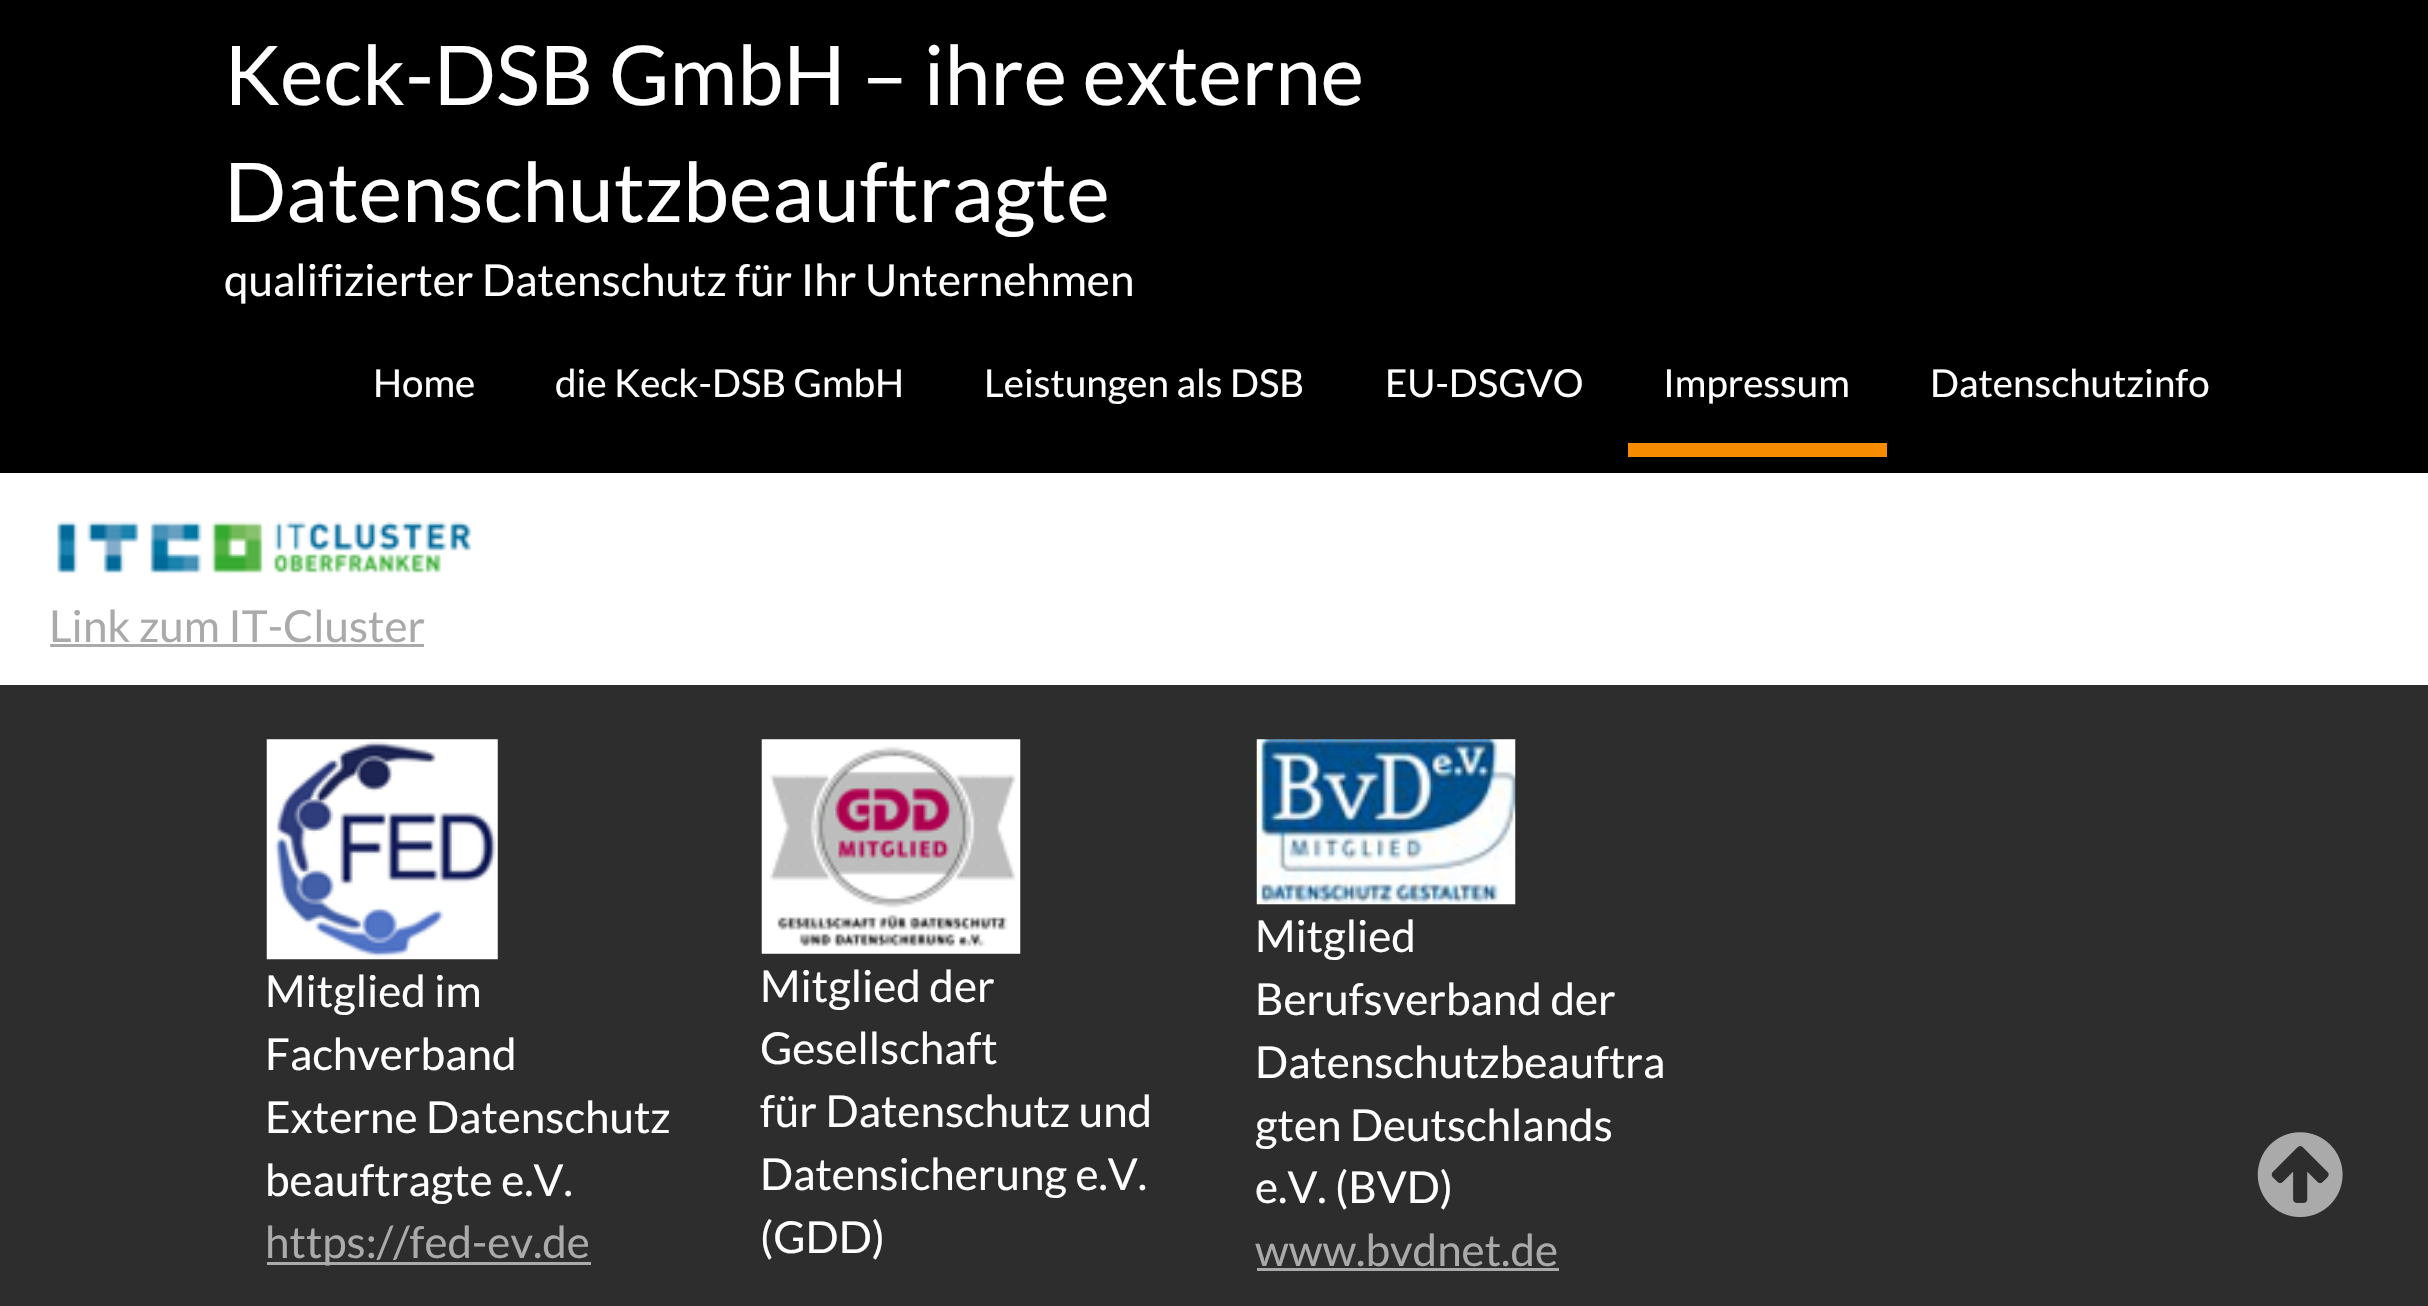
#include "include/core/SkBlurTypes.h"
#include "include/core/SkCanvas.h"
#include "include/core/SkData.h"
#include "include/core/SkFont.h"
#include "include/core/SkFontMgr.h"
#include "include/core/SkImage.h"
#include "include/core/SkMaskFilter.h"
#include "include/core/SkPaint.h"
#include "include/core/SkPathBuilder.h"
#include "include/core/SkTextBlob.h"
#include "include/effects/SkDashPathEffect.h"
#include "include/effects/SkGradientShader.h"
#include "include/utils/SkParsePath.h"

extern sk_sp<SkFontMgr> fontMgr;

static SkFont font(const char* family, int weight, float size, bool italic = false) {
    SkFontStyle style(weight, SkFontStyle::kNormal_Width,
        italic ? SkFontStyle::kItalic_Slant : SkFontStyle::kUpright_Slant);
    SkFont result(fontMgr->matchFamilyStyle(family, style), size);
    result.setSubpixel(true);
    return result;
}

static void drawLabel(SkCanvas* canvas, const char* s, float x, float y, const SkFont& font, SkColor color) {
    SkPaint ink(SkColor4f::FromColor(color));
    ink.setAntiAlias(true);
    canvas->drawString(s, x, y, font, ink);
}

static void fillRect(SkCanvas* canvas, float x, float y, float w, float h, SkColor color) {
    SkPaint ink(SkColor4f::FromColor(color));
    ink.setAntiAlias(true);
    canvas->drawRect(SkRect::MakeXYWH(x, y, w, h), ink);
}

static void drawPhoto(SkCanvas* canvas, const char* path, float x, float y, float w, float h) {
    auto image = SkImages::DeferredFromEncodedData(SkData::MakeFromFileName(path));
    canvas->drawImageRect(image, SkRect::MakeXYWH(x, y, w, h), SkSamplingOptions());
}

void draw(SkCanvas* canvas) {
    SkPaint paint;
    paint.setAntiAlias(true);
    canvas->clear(0xFFFFFFFF);
    fillRect(canvas, 0, 0, 2428, 473, 0xFF000000);
    SkFont font1 = font("Lato", 400, 82.5f);
    drawLabel(canvas, "Keck-DSB GmbH – ihre externe", 224, 105, font1, 0xFFFFFFFF);
    drawLabel(canvas, "Datenschutzbeauftragte", 224, 222, font1, 0xFFFFFFFF);
    SkFont font2 = font("Lato", 400, 44);
    drawLabel(canvas, "qualifizierter Datenschutz für Ihr Unternehmen", 224, 296, font2, 0xFFFFFFFF);
    SkFont font3 = font("Lato", 400, 38.5f);
    drawLabel(canvas, "Home", 373, 397, font3, 0xFFFFFFFF);
    drawLabel(canvas, "die Keck-DSB GmbH", 555, 397, font3, 0xFFFFFFFF);
    drawLabel(canvas, "Leistungen als DSB", 984, 397, font3, 0xFFFFFFFF);
    drawLabel(canvas, "EU-DSGVO", 1385, 397, font3, 0xFFFFFFFF);
    drawLabel(canvas, "Impressum", 1663, 397, font3, 0xFFFFFFFF);
    fillRect(canvas, 1628, 443, 259, 14, 0xFFF88C00);
    drawLabel(canvas, "Datenschutzinfo", 1930, 397, font3, 0xFFFFFFFF);
    drawPhoto(canvas, "assets/img1.png", 57, 521, 415, 53);
    drawLabel(canvas, "Link zum IT-Cluster", 49, 642, font2, 0xFFAAAAAA);
    fillRect(canvas, 50, 644, 374, 3, 0xFFAAAAAA);
    fillRect(canvas, 0, 685, 2428, 621, 0xFF2D2D2D);
    drawPhoto(canvas, "assets/img2.png", 266, 739, 232, 221);
    drawLabel(canvas, "Mitglied im", 265, 1007, font2, 0xFFFFFFFF);
    drawLabel(canvas, "Fachverband", 265, 1070, font2, 0xFFFFFFFF);
    drawLabel(canvas, "Externe Datenschutz", 265, 1133, font2, 0xFFFFFFFF);
    drawLabel(canvas, "beauftragte e.V.", 265, 1196, font2, 0xFFFFFFFF);
    fillRect(canvas, 267, 1262, 324, 3, 0xFFAAAAAA);
    drawLabel(canvas, "https://fed-ev.de", 265, 1258, font2, 0xFFAAAAAA);
    drawPhoto(canvas, "assets/img3.png", 761, 739, 260, 215);
    drawLabel(canvas, "Mitglied der", 760, 1002, font2, 0xFFFFFFFF);
    drawLabel(canvas, "Gesellschaft", 760, 1064, font2, 0xFFFFFFFF);
    drawLabel(canvas, "für Datenschutz und", 760, 1127, font2, 0xFFFFFFFF);
    drawLabel(canvas, "Datensicherung e.V.", 760, 1190, font2, 0xFFFFFFFF);
    drawLabel(canvas, "(GDD)", 760, 1253, font2, 0xFFFFFFFF);
    drawPhoto(canvas, "assets/img4.png", 1256, 739, 260, 166);
    drawLabel(canvas, "Mitglied", 1255, 952, font2, 0xFFFFFFFF);
    drawLabel(canvas, "Berufsverband der", 1255, 1015, font2, 0xFFFFFFFF);
    drawLabel(canvas, "Datenschutzbeauftra", 1255, 1078, font2, 0xFFFFFFFF);
    drawLabel(canvas, "gten Deutschlands", 1255, 1141, font2, 0xFFFFFFFF);
    drawLabel(canvas, "e.V. (BVD)", 1255, 1203, font2, 0xFFFFFFFF);
    drawLabel(canvas, "www.bvdnet.de", 1255, 1266, font2, 0xFFAAAAAA);
    fillRect(canvas, 1257, 1268, 302, 3, 0xFFAAAAAA);
    drawPhoto(canvas, "assets/img5.png", 2257, 1132, 86, 86);
}
